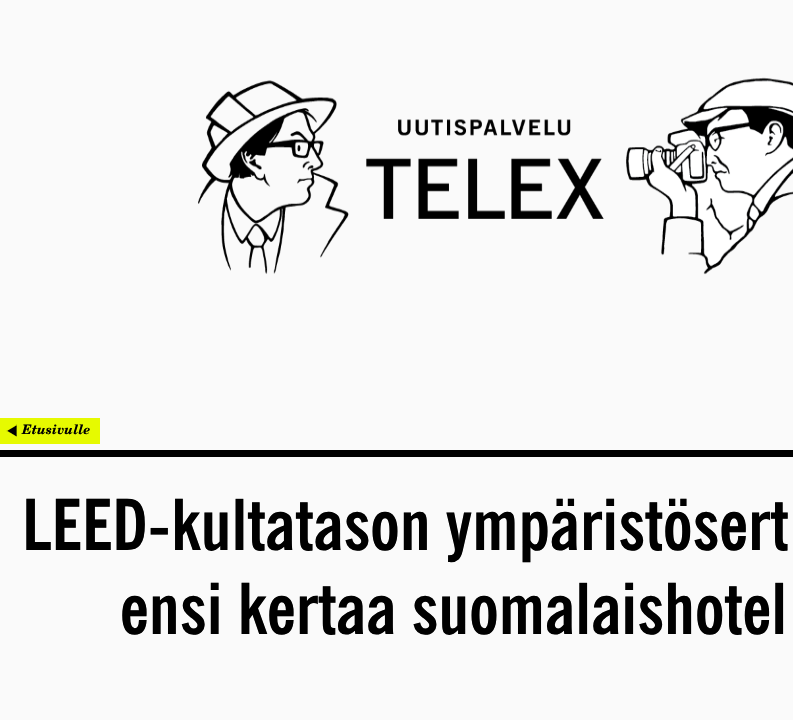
#include "include/core/SkBlurTypes.h"
#include "include/core/SkCanvas.h"
#include "include/core/SkData.h"
#include "include/core/SkFont.h"
#include "include/core/SkFontMgr.h"
#include "include/core/SkImage.h"
#include "include/core/SkMaskFilter.h"
#include "include/core/SkPaint.h"
#include "include/core/SkPathBuilder.h"
#include "include/core/SkTextBlob.h"
#include "include/effects/SkDashPathEffect.h"
#include "include/effects/SkGradientShader.h"
#include "include/utils/SkParsePath.h"

extern sk_sp<SkFontMgr> fontMgr;

static SkFont font(const char* family, int weight, float size, bool italic = false) {
    SkFontStyle style(weight, SkFontStyle::kNormal_Width,
        italic ? SkFontStyle::kItalic_Slant : SkFontStyle::kUpright_Slant);
    SkFont result(fontMgr->matchFamilyStyle(family, style), size);
    result.setSubpixel(true);
    return result;
}

static void drawLabel(SkCanvas* canvas, const char* s, float x, float y, const SkFont& font, SkColor color) {
    SkPaint ink(SkColor4f::FromColor(color));
    ink.setAntiAlias(true);
    canvas->drawString(s, x, y, font, ink);
}

static void fillRect(SkCanvas* canvas, float x, float y, float w, float h, SkColor color) {
    SkPaint ink(SkColor4f::FromColor(color));
    ink.setAntiAlias(true);
    canvas->drawRect(SkRect::MakeXYWH(x, y, w, h), ink);
}

static void drawPhoto(SkCanvas* canvas, const char* path, float x, float y, float w, float h) {
    auto image = SkImages::DeferredFromEncodedData(SkData::MakeFromFileName(path));
    canvas->drawImageRect(image, SkRect::MakeXYWH(x, y, w, h), SkSamplingOptions());
}

void draw(SkCanvas* canvas) {
    SkPaint paint;
    paint.setAntiAlias(true);
    canvas->clear(0xFFFAFAFA);
    drawPhoto(canvas, "assets/img1.png", 198, 77, 595, 198);
    fillRect(canvas, 0, 418, 100, 26, 0xFFE6FA00);
    drawPhoto(canvas, "assets/img2.png", 6, 424, 11, 13);
    SkFont font1 = font("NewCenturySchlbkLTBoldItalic", 700, 13);
    drawLabel(canvas, "Etusivulle", 22, 434, font1, 0xFF000000);
    fillRect(canvas, 0, 450, 793, 7, 0xFF000000);
    SkFont font2 = font("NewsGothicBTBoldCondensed", 700, 70);
    drawLabel(canvas, "LEED-kultatason ympäristösert", 22, 550, font2, 0xFF000000);
    drawLabel(canvas, "ensi kertaa suomalaishotel", 120, 634, font2, 0xFF000000);
}
